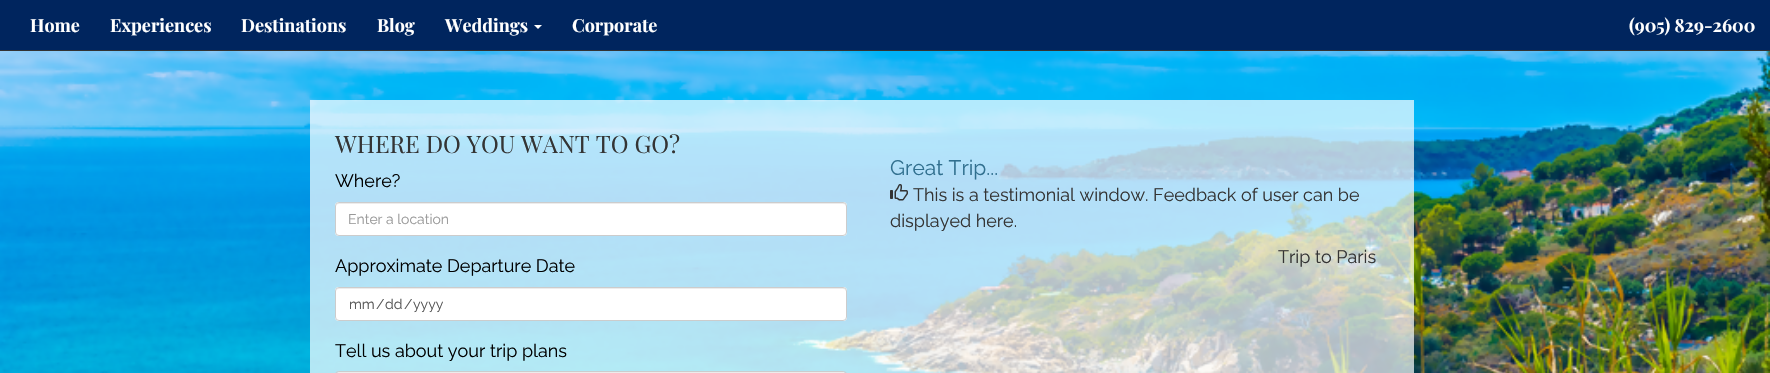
#include "include/core/SkBlurTypes.h"
#include "include/core/SkCanvas.h"
#include "include/core/SkData.h"
#include "include/core/SkFont.h"
#include "include/core/SkFontMgr.h"
#include "include/core/SkImage.h"
#include "include/core/SkMaskFilter.h"
#include "include/core/SkPaint.h"
#include "include/core/SkPathBuilder.h"
#include "include/core/SkTextBlob.h"
#include "include/effects/SkDashPathEffect.h"
#include "include/effects/SkGradientShader.h"
#include "include/utils/SkParsePath.h"

extern sk_sp<SkFontMgr> fontMgr;

static SkFont font(const char* family, int weight, float size, bool italic = false) {
    SkFontStyle style(weight, SkFontStyle::kNormal_Width,
        italic ? SkFontStyle::kItalic_Slant : SkFontStyle::kUpright_Slant);
    SkFont result(fontMgr->matchFamilyStyle(family, style), size);
    result.setSubpixel(true);
    return result;
}

static void drawLabel(SkCanvas* canvas, const char* s, float x, float y, const SkFont& font, SkColor color) {
    SkPaint ink(SkColor4f::FromColor(color));
    ink.setAntiAlias(true);
    canvas->drawString(s, x, y, font, ink);
}

static void fillRect(SkCanvas* canvas, float x, float y, float w, float h, SkColor color) {
    SkPaint ink(SkColor4f::FromColor(color));
    ink.setAntiAlias(true);
    canvas->drawRect(SkRect::MakeXYWH(x, y, w, h), ink);
}

static void fillRRect(SkCanvas* canvas, float x, float y, float w, float h, float radius, SkColor color) {
    SkPaint ink(SkColor4f::FromColor(color));
    ink.setAntiAlias(true);
    canvas->drawRoundRect(SkRect::MakeXYWH(x, y, w, h), radius, radius, ink);
}

static void drawPhoto(SkCanvas* canvas, const char* path, float x, float y, float w, float h) {
    auto image = SkImages::DeferredFromEncodedData(SkData::MakeFromFileName(path));
    canvas->drawImageRect(image, SkRect::MakeXYWH(x, y, w, h), SkSamplingOptions());
}

static SkPath parsePath(const char* data, bool evenOdd = false) {
    SkPath result = *SkParsePath::FromSVGString(data);
    if (evenOdd) result.setFillType(SkPathFillType::kEvenOdd);
    return result;
}

void draw(SkCanvas* canvas) {
    SkPaint paint;
    paint.setAntiAlias(true);
    canvas->clear(0xFFFFFFFF);
    fillRect(canvas, 0, 0, 1770, 50, 0xFF00255E);
    fillRect(canvas, 0, 50, 1770, 1, 0xFF333333);
    SkFont font1 = font("Playfair Display", 700, 18);
    drawLabel(canvas, "Home", 30, 32, font1, 0xFFFFFFFF);
    drawLabel(canvas, "Experiences", 110, 32, font1, 0xFFFFFFFF);
    drawLabel(canvas, "Destinations", 241, 32, font1, 0xFFFFFFFF);
    drawLabel(canvas, "Blog", 377, 32, font1, 0xFFFFFFFF);
    drawLabel(canvas, "Weddings", 445, 32, font1, 0xFFFFFFFF);
    paint.setColor(0xFFFFFFFF);
    canvas->drawPath(parsePath("M534 25H542L538 29Z"), paint);
    drawLabel(canvas, "Corporate", 572, 32, font1, 0xFFFFFFFF);
    drawLabel(canvas, "(905) 829-2600", 1629, 32, font1, 0xFFFFFFFF);
    drawPhoto(canvas, "assets/img1.png", 0, 51, 1770, 322);
    fillRect(canvas, 310, 100, 1104, 273, 0xB3FFFFFF);
    SkFont font2 = font("Playfair Display", 400, 24);
    drawLabel(canvas, "WHERE DO YOU WANT TO GO?", 335, 153, font2, 0xFF343434);
    SkFont font3 = font("Raleway", 400, 18);
    drawLabel(canvas, "Where?", 335, 187, font3, 0xFF000000);
    fillRRect(canvas, 335, 202, 512, 34, 4, 0xFFFFFFFF);
    paint.setColor(0xFFECECEC);
    canvas->drawPath(parsePath("M339 204H843C845 204 846 205 846 207V205L844 203H339C337 203 336 205 336 207C336 205 337 204 339 204Z"), paint);
    paint.setStroke(true);
    paint.setStrokeWidth(1);
    paint.setColor(0xFFCCCCCC);
    canvas->drawRoundRect(SkRect::MakeXYWH(335.5f, 202.5f, 511, 33), 3.5f, 3.5f, paint);
    SkFont font4 = font("Raleway", 400, 14);
    drawLabel(canvas, "Enter a location", 348, 224, font4, 0xFF999999);
    drawLabel(canvas, "Approximate Departure Date", 335, 272, font3, 0xFF000000);
    fillRRect(canvas, 335, 287, 512, 34, 4, 0xFFFFFFFF);
    paint.setStroke(false);
    paint.setColor(0xFFECECEC);
    canvas->drawPath(parsePath("M339 289H843C845 289 846 290 846 292V290L844 288H339C337 288 336 290 336 292C336 290 337 289 339 289Z"), paint);
    paint.setStroke(true);
    paint.setColor(0xFFCCCCCC);
    canvas->drawRoundRect(SkRect::MakeXYWH(335.5f, 287.5f, 511, 33), 3.5f, 3.5f, paint);
    drawLabel(canvas, "mm", 349, 309, font4, 0xFF555555);
    drawLabel(canvas, "/", 376, 309, font4, 0xFF555555);
    drawLabel(canvas, "dd", 385, 309, font4, 0xFF555555);
    drawLabel(canvas, "/", 404, 309, font4, 0xFF555555);
    drawLabel(canvas, "yyyy", 413, 309, font4, 0xFF555555);
    drawLabel(canvas, "Tell us about your trip plans", 335, 357, font3, 0xFF000000);
    paint.setStroke(false);
    paint.setColor(0xFFECECEC);
    canvas->drawPath(parsePath("M339 373H843C845 373 846 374 846 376V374L844 372H339C337 372 336 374 336 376C336 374 337 373 339 373Z"), paint);
    paint.setStroke(true);
    paint.setColor(0xFFCCCCCC);
    canvas->drawRoundRect(SkRect::MakeXYWH(335.5f, 371.5f, 511, 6), 3.5f, 3.5f, paint);
    SkFont font5 = font("Raleway", 400, 21);
    drawLabel(canvas, "Great Trip...", 890, 175, font5, 0xFF31708F);
    drawPhoto(canvas, "assets/img2.png", 890, 184, 18, 17);
    drawLabel(canvas, "This is a testimonial window. Feedback of user can be", 913, 201, font3, 0xFF343434);
    drawLabel(canvas, "displayed here.", 890, 227, font3, 0xFF343434);
    drawLabel(canvas, "Trip to Paris", 1278, 263, font3, 0xFF343434);
}
